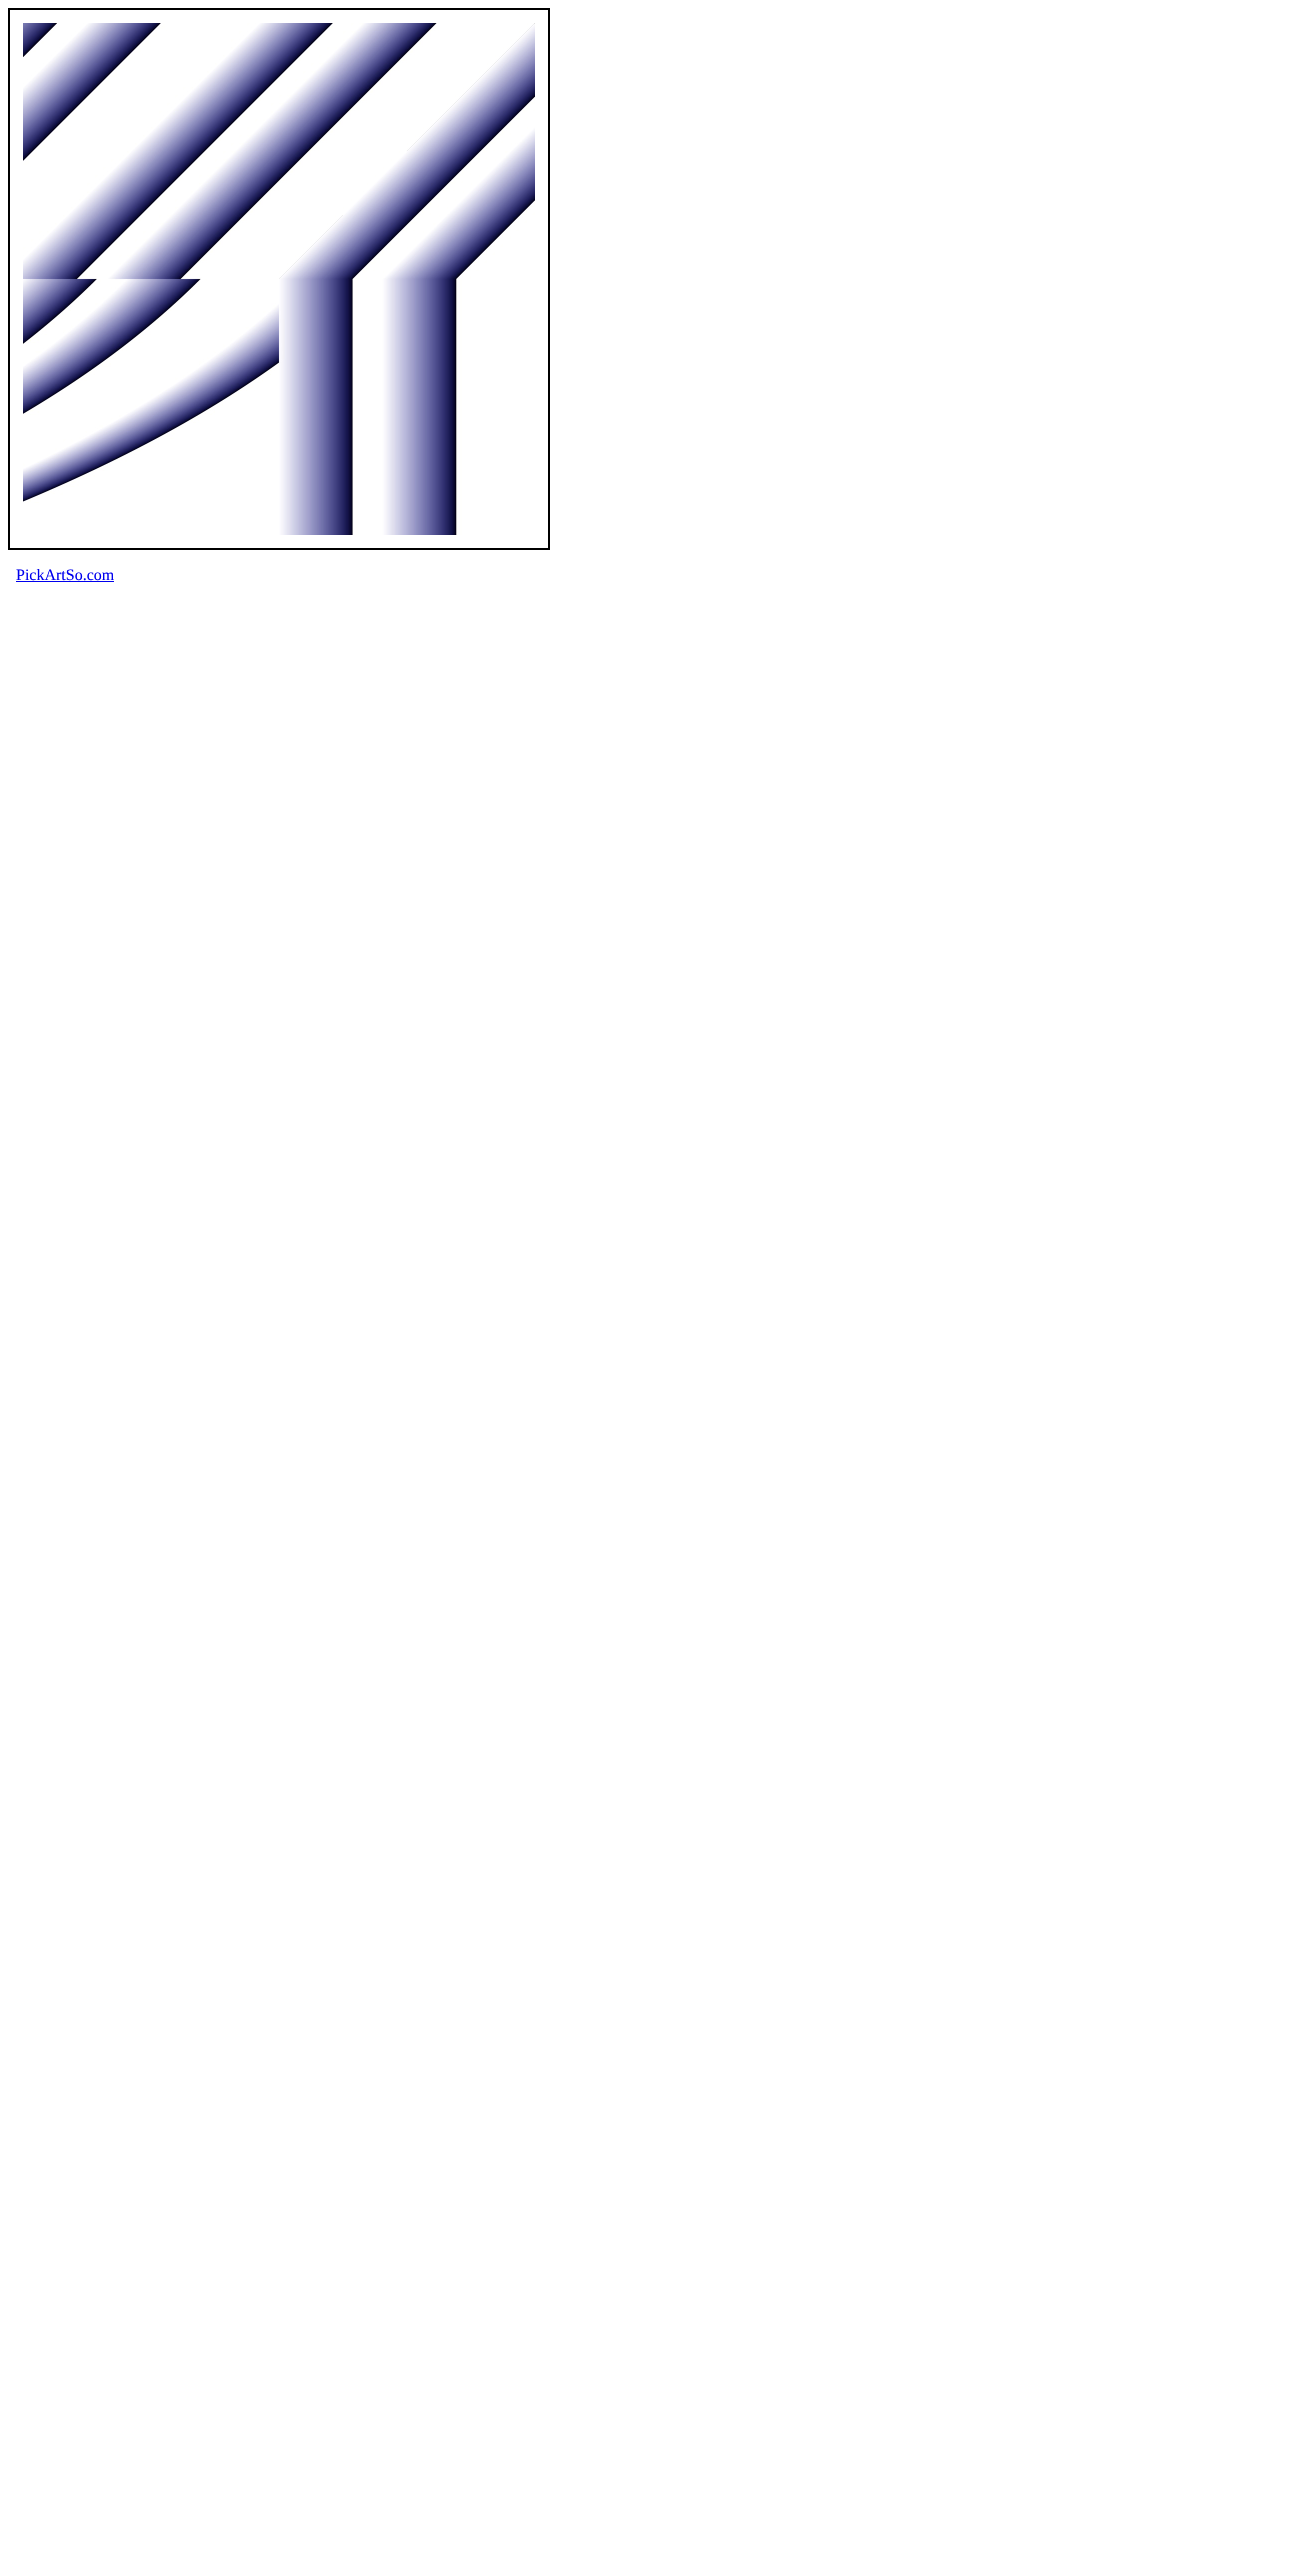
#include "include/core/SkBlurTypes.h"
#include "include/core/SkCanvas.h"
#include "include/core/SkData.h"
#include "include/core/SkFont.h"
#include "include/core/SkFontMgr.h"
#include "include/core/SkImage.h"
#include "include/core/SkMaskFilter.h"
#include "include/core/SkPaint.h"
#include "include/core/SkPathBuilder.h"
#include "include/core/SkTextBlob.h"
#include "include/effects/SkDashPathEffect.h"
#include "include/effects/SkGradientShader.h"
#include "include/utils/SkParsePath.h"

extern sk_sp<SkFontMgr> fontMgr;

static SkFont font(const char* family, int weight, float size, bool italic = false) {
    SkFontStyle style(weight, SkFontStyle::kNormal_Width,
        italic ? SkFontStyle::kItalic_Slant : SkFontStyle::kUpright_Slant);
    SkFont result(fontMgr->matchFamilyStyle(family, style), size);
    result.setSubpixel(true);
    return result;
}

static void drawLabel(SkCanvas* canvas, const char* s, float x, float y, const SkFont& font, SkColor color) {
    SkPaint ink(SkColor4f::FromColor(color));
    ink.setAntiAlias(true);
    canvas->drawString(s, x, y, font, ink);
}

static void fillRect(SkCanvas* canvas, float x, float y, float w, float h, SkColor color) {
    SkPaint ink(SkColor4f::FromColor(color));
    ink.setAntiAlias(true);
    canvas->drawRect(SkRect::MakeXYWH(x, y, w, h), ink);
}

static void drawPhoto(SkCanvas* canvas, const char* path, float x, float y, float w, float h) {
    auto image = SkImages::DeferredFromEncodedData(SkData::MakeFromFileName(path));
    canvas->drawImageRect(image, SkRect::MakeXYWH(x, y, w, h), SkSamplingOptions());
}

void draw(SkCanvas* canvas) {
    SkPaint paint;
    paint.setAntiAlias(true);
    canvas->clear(0xFFFFFFFF);
    paint.setStroke(true);
    paint.setStrokeWidth(2);
    paint.setColor(0xFF000000);
    canvas->drawRect(SkRect::MakeXYWH(9, 9, 540, 540), paint);
    drawPhoto(canvas, "assets/img1.png", 23, 23, 512, 512);
    SkFont font1 = font("Liberation Serif", 400, 16);
    drawLabel(canvas, "PickArtSo.com", 16, 580, font1, 0xFF0000EE);
    fillRect(canvas, 16, 581, 98, 1, 0xFF0000EE);
}
